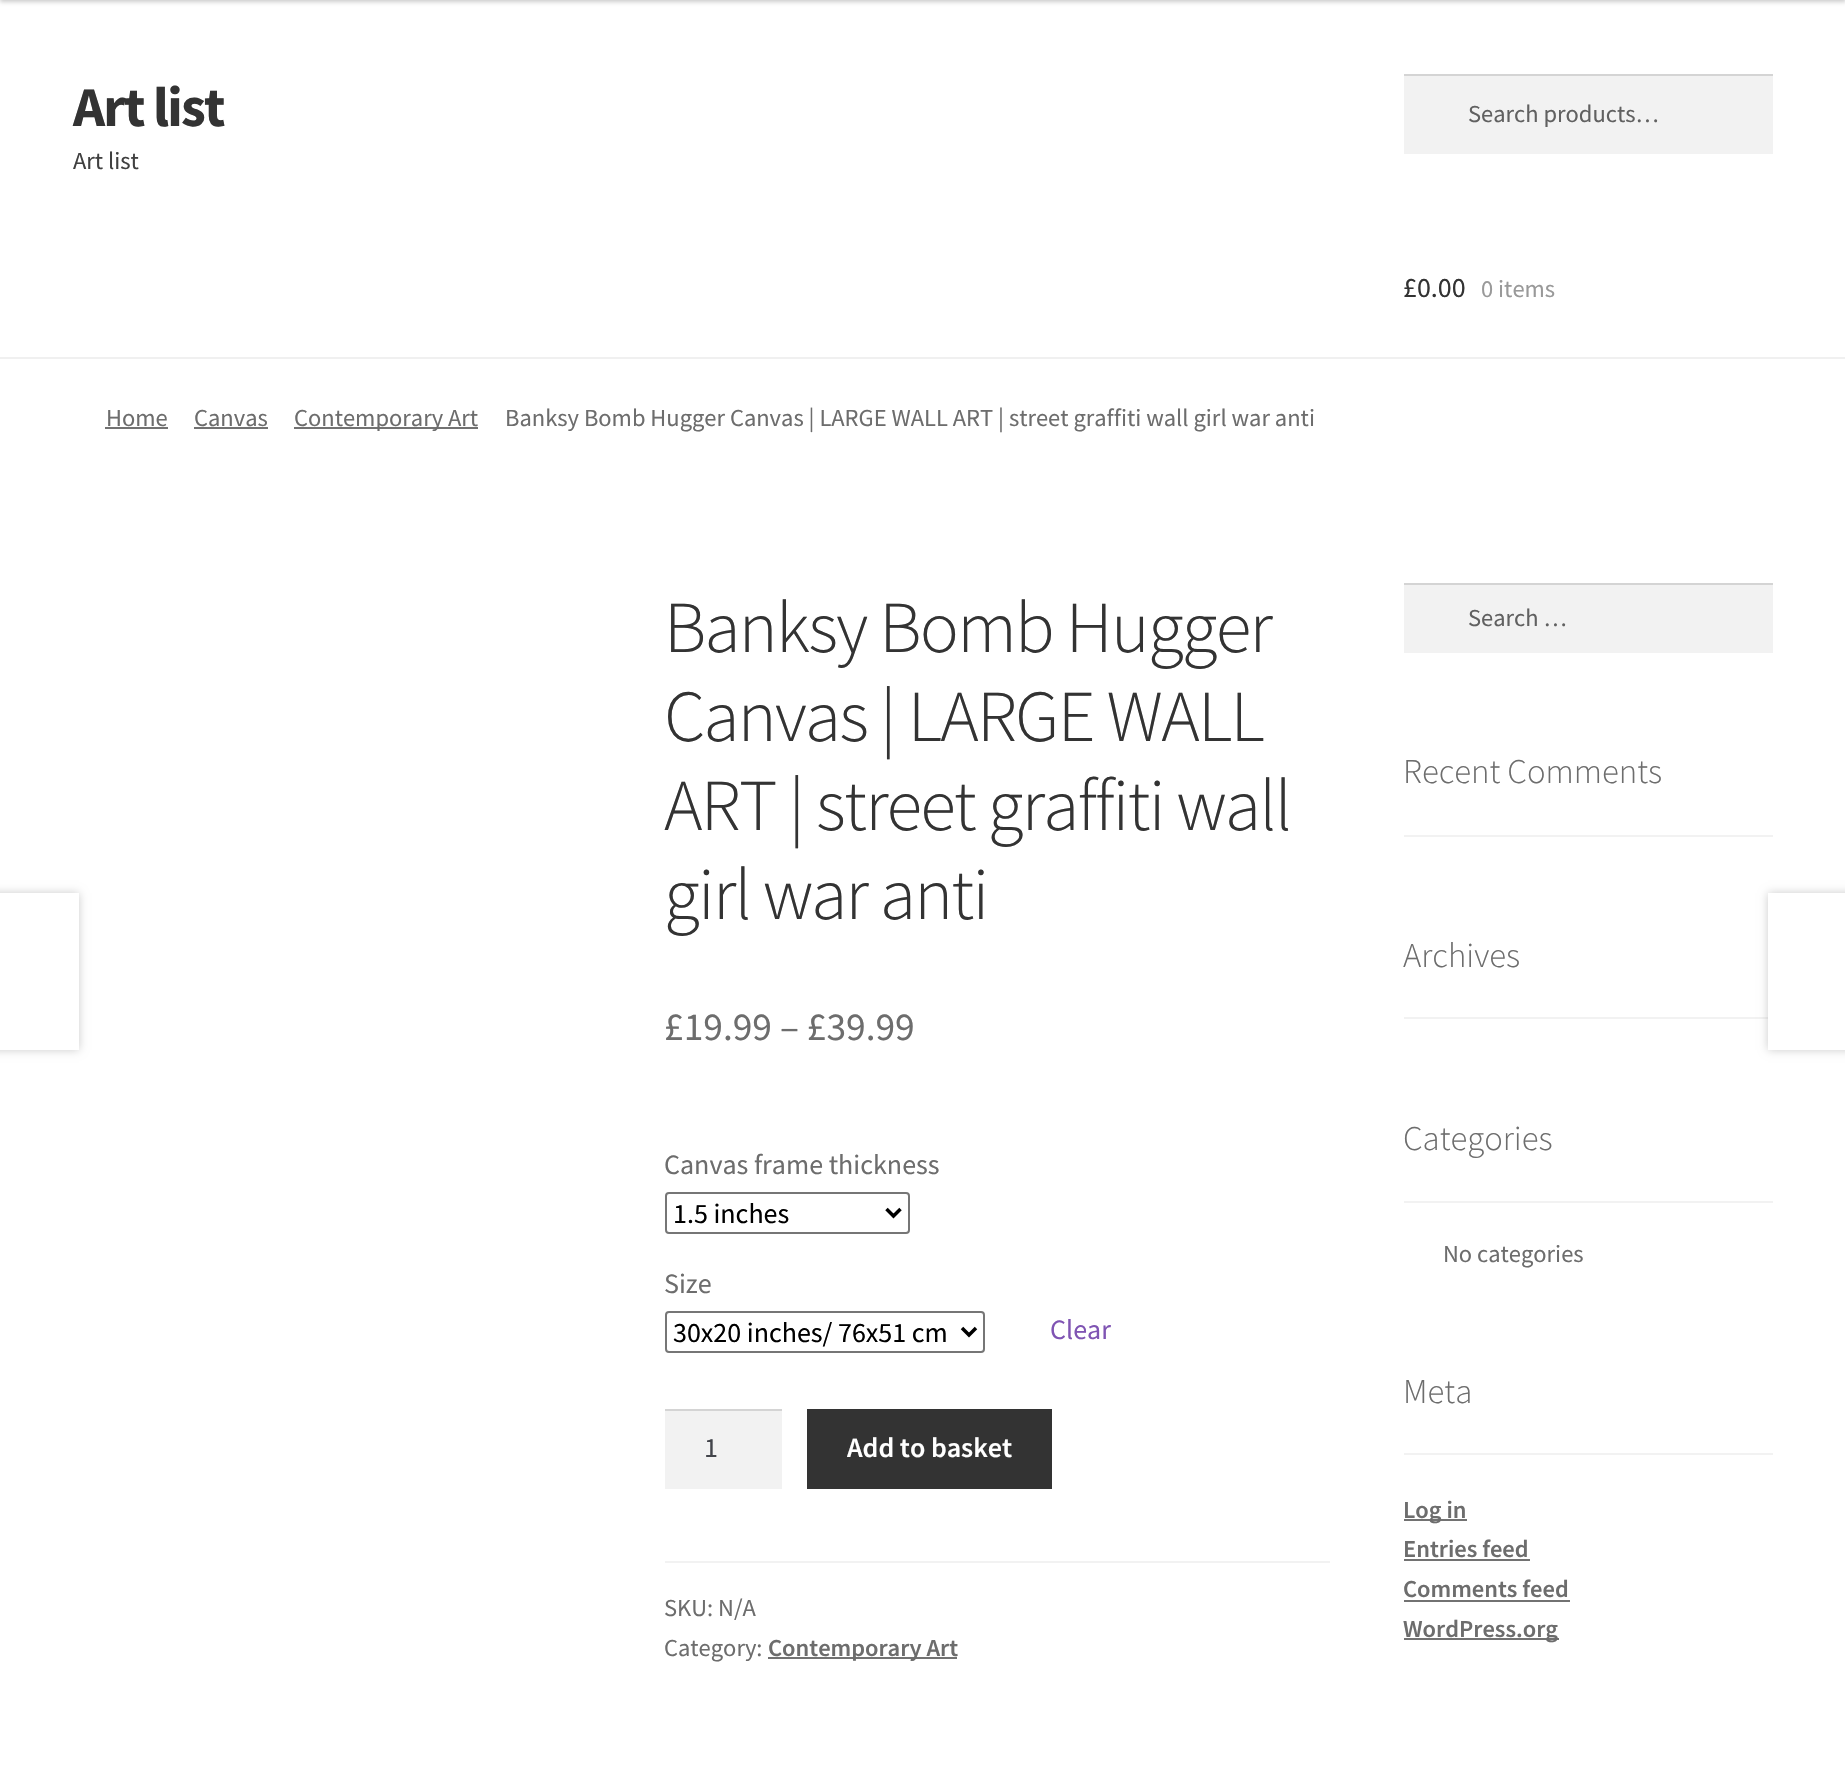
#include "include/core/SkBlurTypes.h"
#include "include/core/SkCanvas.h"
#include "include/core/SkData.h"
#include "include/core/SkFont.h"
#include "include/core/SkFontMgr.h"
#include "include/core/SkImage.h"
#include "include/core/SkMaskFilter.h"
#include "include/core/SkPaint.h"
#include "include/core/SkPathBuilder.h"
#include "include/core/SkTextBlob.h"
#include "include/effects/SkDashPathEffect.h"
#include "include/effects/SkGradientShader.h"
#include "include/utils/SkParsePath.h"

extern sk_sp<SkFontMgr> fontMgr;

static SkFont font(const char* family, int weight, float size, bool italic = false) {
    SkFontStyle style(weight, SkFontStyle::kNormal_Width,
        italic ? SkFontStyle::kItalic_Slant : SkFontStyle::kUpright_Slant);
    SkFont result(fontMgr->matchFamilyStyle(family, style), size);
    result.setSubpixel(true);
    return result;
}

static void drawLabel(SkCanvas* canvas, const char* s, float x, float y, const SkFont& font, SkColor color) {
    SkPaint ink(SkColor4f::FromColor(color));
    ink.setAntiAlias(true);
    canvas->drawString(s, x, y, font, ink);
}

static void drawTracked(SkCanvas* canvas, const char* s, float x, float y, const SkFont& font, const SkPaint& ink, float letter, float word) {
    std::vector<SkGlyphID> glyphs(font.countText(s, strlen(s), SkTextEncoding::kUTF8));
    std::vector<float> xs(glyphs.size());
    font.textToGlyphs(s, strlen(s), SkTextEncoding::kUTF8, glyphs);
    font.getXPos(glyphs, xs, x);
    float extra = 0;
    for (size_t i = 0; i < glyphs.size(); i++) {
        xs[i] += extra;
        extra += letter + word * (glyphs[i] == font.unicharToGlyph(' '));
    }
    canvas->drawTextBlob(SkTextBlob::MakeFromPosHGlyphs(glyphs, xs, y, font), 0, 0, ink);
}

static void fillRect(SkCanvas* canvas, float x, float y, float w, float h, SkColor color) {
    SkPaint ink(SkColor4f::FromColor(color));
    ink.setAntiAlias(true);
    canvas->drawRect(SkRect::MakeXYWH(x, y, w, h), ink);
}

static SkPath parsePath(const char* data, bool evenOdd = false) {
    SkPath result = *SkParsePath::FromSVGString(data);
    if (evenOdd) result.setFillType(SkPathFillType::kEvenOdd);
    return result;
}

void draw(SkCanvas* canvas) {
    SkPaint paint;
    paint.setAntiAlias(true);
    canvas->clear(0xFFFFFFFF);
    paint.setColor(0x33000000);
    paint.setMaskFilter(SkMaskFilter::MakeBlur(kNormal_SkBlurStyle, 2));
    canvas->drawRect(SkRect::MakeXYWH(0, -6, 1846, 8), paint);
    paint.setMaskFilter(nullptr);
    fillRect(canvas, 0, 357, 1845, 2, 0xFFF0F0F0);
    SkFont font1 = font("Source Sans Pro", 700, 56);
    paint.setColor(0xFF333333);
    drawTracked(canvas, "Art list", 73, 126, font1, paint, -1.75f, 0);
    SkFont font2 = font("Source Sans Pro", 400, 24.5f);
    drawLabel(canvas, "Art list", 73, 169, font2, 0xFF404040);
    fillRect(canvas, 1404, 76, 369, 78, 0xFFF2F2F2);
    fillRect(canvas, 1404, 74, 369, 2, 0xFFD4D4D4);
    drawLabel(canvas, "Search products…", 1468, 122, font2, 0xFF616161);
    SkFont font3 = font("Source Sans Pro", 400, 28);
    drawLabel(canvas, "£0.00", 1403, 297, font3, 0xFF333333);
    drawLabel(canvas, "0 items", 1481, 297, font2, 0xFF999999);
    drawLabel(canvas, "Home", 106, 426, font2, 0xFF6D6D6D);
    fillRect(canvas, 105, 427, 63, 2, 0xFF727272);
    drawLabel(canvas, "Canvas", 194, 426, font2, 0xFF6D6D6D);
    fillRect(canvas, 194, 427, 74, 2, 0xFF727272);
    fillRect(canvas, 294, 427, 184, 2, 0xFF727272);
    drawLabel(canvas, "Contemporary Art", 294, 426, font2, 0xFF6D6D6D);
    drawLabel(canvas, "Banksy Bomb Hugger Canvas | LARGE WALL ART | street graffiti wall girl war anti", 505, 426, font2, 0xFF6D6D6D);
    SkFont font4 = font("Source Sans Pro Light", 300, 73.25f);
    drawTracked(canvas, "Banksy Bomb Hugger", 664, 652, font4, paint, -1.75f, 0);
    drawTracked(canvas, "Canvas | LARGE WALL", 664, 741, font4, paint, -1.75f, 0);
    drawTracked(canvas, "ART | street graffiti wall", 664, 830, font4, paint, -1.75f, 0);
    drawTracked(canvas, "girl war anti", 664, 919, font4, paint, -1.75f, 0);
    SkFont font5 = font("Source Sans Pro", 400, 39.5f);
    drawLabel(canvas, "£19.99 – £39.99", 664, 1040, font5, 0xFF6D6D6D);
    drawLabel(canvas, "Canvas frame thickness", 664, 1174, font3, 0xFF6D6D6D);
    paint.setStroke(true);
    paint.setStrokeWidth(2);
    paint.setColor(0xFF767676);
    canvas->drawRoundRect(SkRect::MakeXYWH(666, 1193, 243, 40), 3, 3, paint);
    paint.setStrokeWidth(3.5f);
    paint.setColor(0xFF000000);
    canvas->drawPath(parsePath("M886.5 1209L893.5 1216L900.5 1209"), paint);
    drawLabel(canvas, "1.5 inches", 673, 1223, font3, 0xFF000000);
    drawLabel(canvas, "Size", 664, 1293, font3, 0xFF6D6D6D);
    paint.setStrokeWidth(2);
    paint.setColor(0xFF767676);
    canvas->drawRoundRect(SkRect::MakeXYWH(666, 1312, 318, 40), 3, 3, paint);
    paint.setStrokeWidth(3.5f);
    paint.setColor(0xFF000000);
    canvas->drawPath(parsePath("M962 1328L969 1335L976 1328"), paint);
    drawLabel(canvas, "30x20 inches/ 76x51 cm", 673, 1342, font3, 0xFF000000);
    drawLabel(canvas, "Clear", 1050, 1339, font3, 0xFF7F54B3);
    fillRect(canvas, 665, 1411, 117, 78, 0xFFF2F2F2);
    fillRect(canvas, 665, 1409, 117, 2, 0xFFD4D4D4);
    drawLabel(canvas, "1", 704, 1457, font3, 0xFF43454B);
    fillRect(canvas, 807, 1409, 245, 80, 0xFF333333);
    SkFont font6 = font("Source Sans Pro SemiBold", 600, 28);
    drawLabel(canvas, "Add to basket", 847, 1457, font6, 0xFFFFFFFF);
    fillRect(canvas, 665, 1561, 665, 2, 0xFFF2F2F2);
    drawLabel(canvas, "SKU: N/A", 664, 1616, font2, 0xFF6D6D6D);
    drawLabel(canvas, "Category:", 664, 1656, font2, 0xFF6D6D6D);
    fillRect(canvas, 768, 1657, 189, 2, 0xFF727272);
    SkFont font7 = font("Source Sans Pro SemiBold", 600, 24.5f);
    drawLabel(canvas, "Contemporary Art", 768, 1656, font7, 0xFF6D6D6D);
    paint.setStroke(false);
    paint.setColor(0x33000000);
    paint.setMaskFilter(SkMaskFilter::MakeBlur(kNormal_SkBlurStyle, 4.5f));
    canvas->drawRect(SkRect::MakeXYWH(-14, 893, 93, 157), paint);
    paint.setMaskFilter(nullptr);
    fillRect(canvas, 0, 893, 79, 157, 0xFFFFFFFF);
    fillRect(canvas, 1404, 1017, 369, 2, 0xFFF2F2F2);
    paint.setMaskFilter(SkMaskFilter::MakeBlur(kNormal_SkBlurStyle, 4.5f));
    canvas->drawRect(SkRect::MakeXYWH(1768, 893, 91, 157), paint);
    paint.setMaskFilter(nullptr);
    fillRect(canvas, 1768, 893, 77, 157, 0xFFFFFFFF);
    fillRect(canvas, 1404, 585, 369, 68, 0xFFF2F2F2);
    fillRect(canvas, 1404, 583, 369, 2, 0xFFD4D4D4);
    drawLabel(canvas, "Search …", 1468, 626, font2, 0xFF616161);
    fillRect(canvas, 1404, 835, 369, 2, 0xFFF2F2F2);
    SkFont font8 = font("Source Sans Pro Light", 300, 34.75f);
    drawLabel(canvas, "Recent Comments", 1403, 783, font8, 0xFF6D6D6D);
    drawLabel(canvas, "Archives", 1403, 967, font8, 0xFF6D6D6D);
    fillRect(canvas, 1404, 1201, 369, 2, 0xFFF2F2F2);
    drawLabel(canvas, "Categories", 1403, 1150, font8, 0xFF6D6D6D);
    drawLabel(canvas, "No categories", 1443, 1262, font2, 0xFF6D6D6D);
    fillRect(canvas, 1404, 1453, 369, 2, 0xFFF2F2F2);
    drawLabel(canvas, "Meta", 1403, 1403, font8, 0xFF6D6D6D);
    fillRect(canvas, 1404, 1519, 63, 2, 0xFF727272);
    drawLabel(canvas, "Log in", 1403, 1518, font7, 0xFF6D6D6D);
    drawLabel(canvas, "Entries feed", 1403, 1557, font7, 0xFF6D6D6D);
    fillRect(canvas, 1404, 1559, 126, 2, 0xFF727272);
    drawLabel(canvas, "Comments feed", 1403, 1597, font7, 0xFF6D6D6D);
    fillRect(canvas, 1404, 1600, 166, 2, 0xFF727272);
    fillRect(canvas, 1404, 1638, 155, 2, 0xFF727272);
    drawLabel(canvas, "WordPress.org", 1403, 1637, font7, 0xFF6D6D6D);
}
